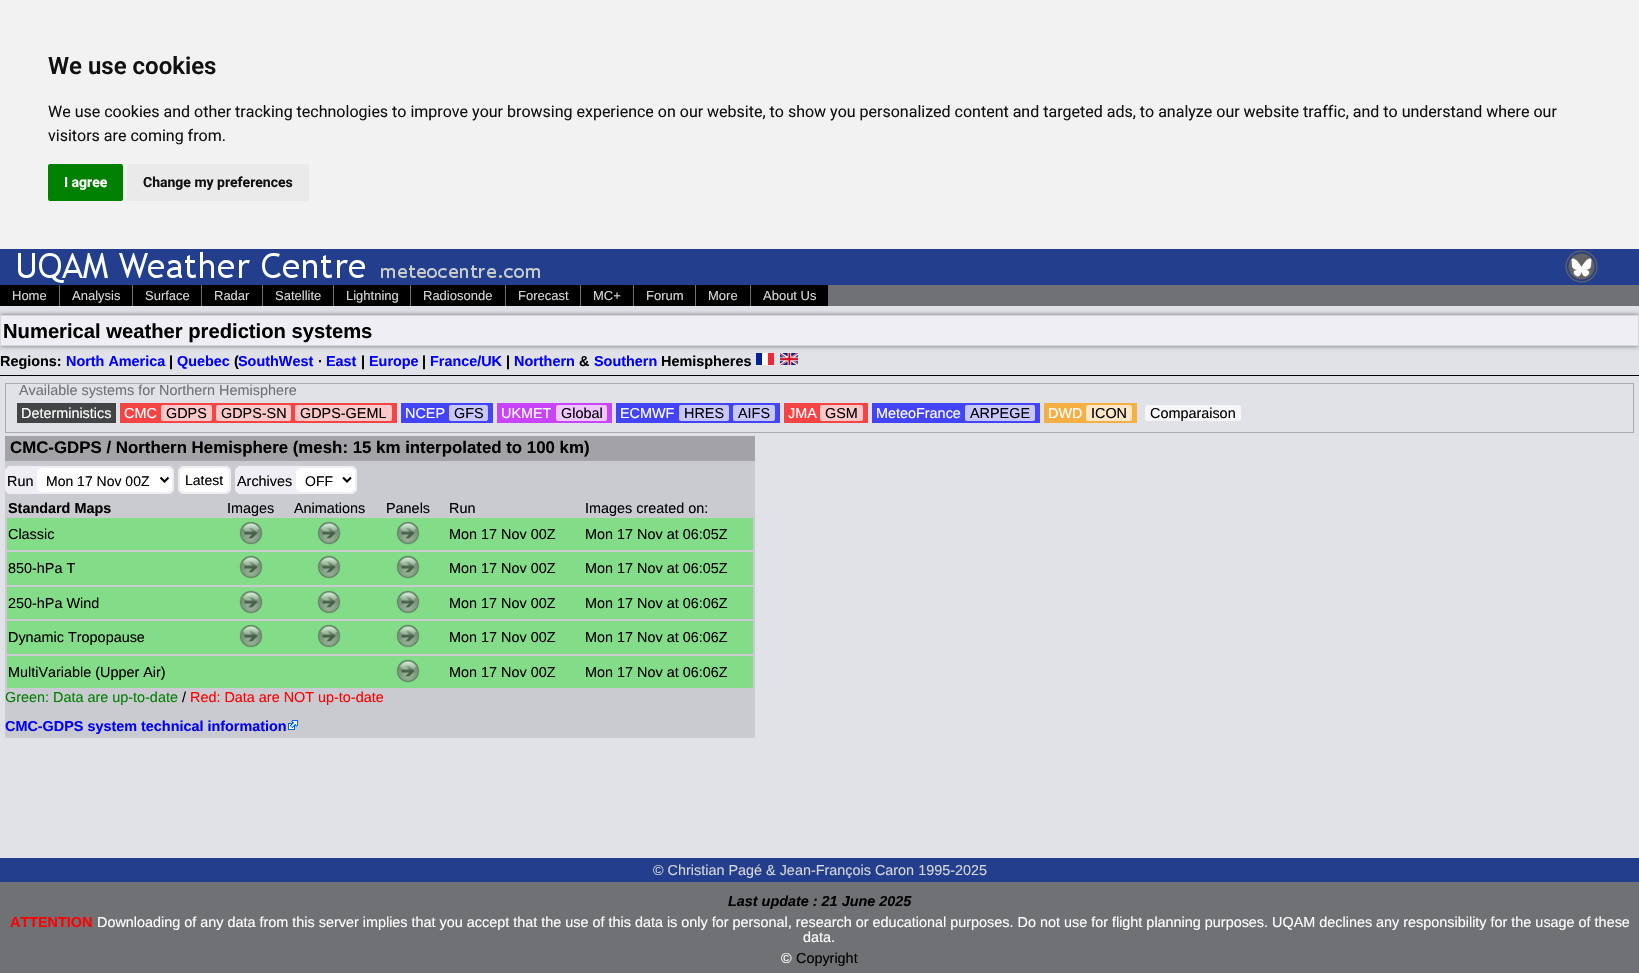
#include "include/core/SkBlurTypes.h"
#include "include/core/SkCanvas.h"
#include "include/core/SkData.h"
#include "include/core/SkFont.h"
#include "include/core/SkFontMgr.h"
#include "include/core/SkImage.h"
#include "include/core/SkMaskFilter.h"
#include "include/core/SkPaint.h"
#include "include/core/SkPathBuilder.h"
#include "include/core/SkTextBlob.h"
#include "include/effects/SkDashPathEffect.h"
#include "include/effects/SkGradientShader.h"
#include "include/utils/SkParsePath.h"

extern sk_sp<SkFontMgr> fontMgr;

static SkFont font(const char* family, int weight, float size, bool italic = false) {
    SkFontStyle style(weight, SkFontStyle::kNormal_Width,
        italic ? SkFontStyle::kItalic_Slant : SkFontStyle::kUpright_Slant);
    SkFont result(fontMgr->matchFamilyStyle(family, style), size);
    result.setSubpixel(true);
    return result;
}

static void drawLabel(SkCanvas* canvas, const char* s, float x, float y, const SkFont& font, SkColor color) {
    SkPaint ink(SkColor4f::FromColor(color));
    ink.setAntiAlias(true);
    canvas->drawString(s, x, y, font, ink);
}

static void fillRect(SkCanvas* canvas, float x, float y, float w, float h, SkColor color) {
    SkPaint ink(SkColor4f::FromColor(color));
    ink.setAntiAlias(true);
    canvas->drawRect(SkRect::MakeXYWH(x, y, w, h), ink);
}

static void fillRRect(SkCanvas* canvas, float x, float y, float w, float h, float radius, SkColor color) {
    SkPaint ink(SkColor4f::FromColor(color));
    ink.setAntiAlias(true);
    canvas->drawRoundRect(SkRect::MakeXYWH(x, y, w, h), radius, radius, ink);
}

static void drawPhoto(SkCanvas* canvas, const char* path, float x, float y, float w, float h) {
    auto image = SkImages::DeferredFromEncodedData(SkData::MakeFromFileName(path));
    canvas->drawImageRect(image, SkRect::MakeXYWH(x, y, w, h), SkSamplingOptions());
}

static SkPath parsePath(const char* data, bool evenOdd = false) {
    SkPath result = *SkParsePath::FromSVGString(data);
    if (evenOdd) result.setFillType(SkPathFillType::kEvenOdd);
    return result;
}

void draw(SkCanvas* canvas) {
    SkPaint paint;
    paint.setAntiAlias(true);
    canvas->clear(0xFFE0E2E7);
    fillRect(canvas, 0, 0, 1639, 249, 0xFFF2F2F2);
    SkFont font1 = font("Roboto", 600, 24);
    drawLabel(canvas, "We use cookies", 48, 74, font1, 0xFF111111);
    SkFont font2 = font("Roboto", 400, 16);
    drawLabel(canvas, "We use cookies and other tracking technologies to improve your browsing experience on our website, to show you personalized content and targeted ads, to analyze our website traffic, and to understand where our", 48, 117, font2, 0xFF111111);
    drawLabel(canvas, "visitors are coming from.", 48, 141, font2, 0xFF111111);
    fillRRect(canvas, 48, 164, 75, 37, 2, 0xFF008000);
    SkFont font3 = font("Roboto", 700, 14);
    drawLabel(canvas, "I agree", 64, 187, font3, 0xFFFFFFFF);
    fillRRect(canvas, 127, 164, 182, 37, 2, 0xFFEAEAEA);
    drawLabel(canvas, "Change my preferences", 143, 187, font3, 0xFF111111);
    fillRect(canvas, 0, 249, 1639, 36, 0xFF233E8D);
    drawPhoto(canvas, "assets/img1.png", 18, 252, 522, 31);
    drawPhoto(canvas, "assets/img2.png", 1565, 250, 33, 33);
    fillRect(canvas, 59, 285, 1580, 21, 0xFF707174);
    fillRect(canvas, 0, 285, 59, 21, 0xFF000000);
    SkFont font4 = font("Liberation Sans", 400, 13);
    drawLabel(canvas, "Home", 12, 300, font4, 0xFFD7D7D7);
    fillRect(canvas, 60, 285, 72, 21, 0xFF000000);
    drawLabel(canvas, "Analysis", 72, 300, font4, 0xFFD7D7D7);
    fillRect(canvas, 133, 285, 68, 21, 0xFF000000);
    drawLabel(canvas, "Surface", 145, 300, font4, 0xFFD7D7D7);
    fillRect(canvas, 202, 285, 60, 21, 0xFF000000);
    drawLabel(canvas, "Radar", 214, 300, font4, 0xFFD7D7D7);
    fillRect(canvas, 263, 285, 70, 21, 0xFF000000);
    drawLabel(canvas, "Satellite", 275, 300, font4, 0xFFD7D7D7);
    fillRect(canvas, 334, 285, 76, 21, 0xFF000000);
    drawLabel(canvas, "Lightning", 346, 300, font4, 0xFFD7D7D7);
    fillRect(canvas, 411, 285, 94, 21, 0xFF000000);
    drawLabel(canvas, "Radiosonde", 423, 300, font4, 0xFFD7D7D7);
    fillRect(canvas, 506, 285, 74, 21, 0xFF000000);
    drawLabel(canvas, "Forecast", 518, 300, font4, 0xFFD7D7D7);
    fillRect(canvas, 581, 285, 52, 21, 0xFF000000);
    drawLabel(canvas, "MC+", 593, 300, font4, 0xFFD7D7D7);
    fillRect(canvas, 634, 285, 61, 21, 0xFF000000);
    drawLabel(canvas, "Forum", 646, 300, font4, 0xFFD7D7D7);
    fillRect(canvas, 696, 285, 54, 21, 0xFF000000);
    drawLabel(canvas, "More", 708, 300, font4, 0xFFD7D7D7);
    fillRect(canvas, 751, 285, 77, 21, 0xFF000000);
    drawLabel(canvas, "About Us", 763, 300, font4, 0xFFD7D7D7);
    paint.setColor(0x80000000);
    paint.setMaskFilter(SkMaskFilter::MakeBlur(kNormal_SkBlurStyle, 2.5f));
    canvas->drawRect(SkRect::MakeXYWH(0, 315, 1639, 31), paint);
    paint.setMaskFilter(nullptr);
    paint.setColor(0xFFEFEEF4);
    canvas->drawRect(SkRect::MakeXYWH(0.5f, 315.5f, 1638, 30), paint);
    paint.setStroke(true);
    paint.setStrokeWidth(1);
    paint.setColor(0xFFD7D7D7);
    canvas->drawRect(SkRect::MakeXYWH(0.5f, 315.5f, 1638, 30), paint);
    SkFont font5 = font("Liberation Sans", 700, 20.2f);
    drawLabel(canvas, "Numerical weather prediction systems", 3, 338, font5, 0xFF000000);
    SkFont font6 = font("Liberation Sans", 700, 14.4f);
    drawLabel(canvas, "Regions:", 0, 366, font6, 0xFF000000);
    drawLabel(canvas, "North America", 66, 366, font6, 0xFF0000FF);
    drawLabel(canvas, "|", 169, 366, font6, 0xFF000000);
    drawLabel(canvas, "Quebec", 177, 366, font6, 0xFF0000FF);
    drawLabel(canvas, "(", 234, 366, font6, 0xFF000000);
    drawLabel(canvas, "SouthWest", 238, 366, font6, 0xFF0000FF);
    drawLabel(canvas, "·", 318, 366, font6, 0xFF000000);
    drawLabel(canvas, "East", 326, 366, font6, 0xFF0000FF);
    drawLabel(canvas, "|", 361, 366, font6, 0xFF000000);
    drawLabel(canvas, "Europe", 369, 366, font6, 0xFF0000FF);
    drawLabel(canvas, "|", 422, 366, font6, 0xFF000000);
    drawLabel(canvas, "France/UK", 430, 366, font6, 0xFF0000FF);
    drawLabel(canvas, "|", 506, 366, font6, 0xFF000000);
    drawLabel(canvas, "Northern", 514, 366, font6, 0xFF0000FF);
    drawLabel(canvas, "&", 579, 366, font6, 0xFF000000);
    drawLabel(canvas, "Southern", 594, 366, font6, 0xFF0000FF);
    drawLabel(canvas, "Hemispheres", 661, 366, font6, 0xFF000000);
    drawPhoto(canvas, "assets/img3.png", 755, 352, 19, 14);
    drawPhoto(canvas, "assets/img4.png", 779, 352, 19, 14);
    fillRect(canvas, 0, 375, 1639, 1, 0xFF000000);
    paint.setColor(0xFFA8AAAD);
    canvas->drawRect(SkRect::MakeXYWH(5.5f, 383.5f, 1628, 49), paint);
    SkFont font7 = font("Liberation Sans", 400, 14.4f);
    drawLabel(canvas, "Available systems for Northern Hemisphere", 19, 395, font7, 0xFF707174);
    fillRect(canvas, 17, 403, 99, 20, 0xFF434445);
    drawLabel(canvas, "Deterministics", 21, 418, font7, 0xFFFFFFFF);
    fillRect(canvas, 120, 403, 277, 20, 0xFFF64445);
    drawLabel(canvas, "CMC", 124, 418, font7, 0xFFFFFFFF);
    fillRRect(canvas, 161, 405, 51, 16, 2, 0xFFFCC7C7);
    drawLabel(canvas, "GDPS", 166, 418, font7, 0xFF000000);
    fillRRect(canvas, 216, 405, 75, 16, 2, 0xFFFCC7C7);
    drawLabel(canvas, "GDPS-SN", 221, 418, font7, 0xFF000000);
    fillRRect(canvas, 295, 405, 97, 16, 2, 0xFFFCC7C7);
    drawLabel(canvas, "GDPS-GEML", 300, 418, font7, 0xFF000000);
    fillRect(canvas, 401, 403, 92, 20, 0xFF4344F8);
    drawLabel(canvas, "NCEP", 405, 418, font7, 0xFFFFFFFF);
    fillRRect(canvas, 449, 405, 39, 16, 2, 0xFFC7C7FD);
    drawLabel(canvas, "GFS", 454, 418, font7, 0xFF000000);
    fillRect(canvas, 497, 403, 115, 20, 0xFFC944F8);
    drawLabel(canvas, "UKMET", 501, 418, font7, 0xFFFFFFFF);
    fillRRect(canvas, 556, 405, 51, 16, 2, 0xFFEFC7FD);
    drawLabel(canvas, "Global", 561, 418, font7, 0xFF000000);
    fillRect(canvas, 616, 403, 164, 20, 0xFF4344F8);
    drawLabel(canvas, "ECMWF", 620, 418, font7, 0xFFFFFFFF);
    fillRRect(canvas, 679, 405, 50, 16, 2, 0xFFC7C7FD);
    drawLabel(canvas, "HRES", 684, 418, font7, 0xFF000000);
    fillRRect(canvas, 733, 405, 42, 16, 2, 0xFFC7C7FD);
    drawLabel(canvas, "AIFS", 738, 418, font7, 0xFF000000);
    fillRect(canvas, 784, 403, 84, 20, 0xFFF64445);
    drawLabel(canvas, "JMA", 788, 418, font7, 0xFFFFFFFF);
    fillRRect(canvas, 820, 405, 43, 16, 2, 0xFFFCC7C7);
    drawLabel(canvas, "GSM", 825, 418, font7, 0xFF000000);
    fillRect(canvas, 872, 403, 168, 20, 0xFF4344F8);
    drawLabel(canvas, "MeteoFrance", 876, 418, font7, 0xFFFFFFFF);
    fillRRect(canvas, 965, 405, 70, 16, 2, 0xFFC7C7FD);
    drawLabel(canvas, "ARPEGE", 970, 418, font7, 0xFF000000);
    fillRect(canvas, 1044, 403, 93, 20, 0xFFF6AF45);
    drawLabel(canvas, "DWD", 1048, 418, font7, 0xFFFFFFFF);
    fillRRect(canvas, 1086, 405, 46, 16, 2, 0xFFFCE7C7);
    drawLabel(canvas, "ICON", 1091, 418, font7, 0xFF000000);
    fillRRect(canvas, 1145, 405, 96, 16, 2, 0xFFF6F6F8);
    drawLabel(canvas, "Comparaison", 1150, 418, font7, 0xFF000000);
    fillRect(canvas, 5, 461, 750, 277, 0xFFCACBD1);
    fillRect(canvas, 5, 436, 750, 25, 0xFFA2A2A7);
    SkFont font8 = font("Liberation Sans", 700, 16.85f);
    drawLabel(canvas, "CMC-GDPS / Northern Hemisphere (mesh: 15 km interpolated to 100 km)", 10, 453, font8, 0xFF000000);
    paint.setStroke(false);
    paint.setColor(0xFFEFEEF4);
    canvas->drawRoundRect(SkRect::MakeXYWH(5.5f, 466.5f, 168, 27), 4.5f, 4.5f, paint);
    paint.setStroke(true);
    canvas->drawRoundRect(SkRect::MakeXYWH(5.5f, 466.5f, 168, 27), 4.5f, 4.5f, paint);
    drawLabel(canvas, "Run", 7, 486, font7, 0xFF000000);
    fillRRect(canvas, 37, 468, 135, 24, 5, 0xFFFFFFFF);
    paint.setStrokeWidth(2);
    paint.setColor(0xFF000000);
    canvas->drawPath(parsePath("M160.5 477.5L164.5 481.5L168.5 477.5"), paint);
    SkFont font9 = font("Liberation Sans", 400, 14);
    drawLabel(canvas, "Mon 17 Nov 00Z", 46, 486, font9, 0xFF000000);
    paint.setStroke(false);
    paint.setColor(0xFFEFEEF4);
    canvas->drawRoundRect(SkRect::MakeXYWH(178.5f, 466.5f, 52, 27), 4.5f, 4.5f, paint);
    paint.setStroke(true);
    paint.setStrokeWidth(1);
    canvas->drawRoundRect(SkRect::MakeXYWH(178.5f, 466.5f, 52, 27), 4.5f, 4.5f, paint);
    fillRRect(canvas, 180, 468, 49, 24, 5, 0xFFFFFFFF);
    drawLabel(canvas, "Latest", 185, 485, font9, 0xFF000000);
    paint.setStroke(false);
    canvas->drawRoundRect(SkRect::MakeXYWH(235.5f, 466.5f, 121, 27), 4.5f, 4.5f, paint);
    paint.setStroke(true);
    canvas->drawRoundRect(SkRect::MakeXYWH(235.5f, 466.5f, 121, 27), 4.5f, 4.5f, paint);
    drawLabel(canvas, "Archives", 237, 486, font7, 0xFF000000);
    fillRRect(canvas, 296, 468, 59, 24, 5, 0xFFFFFFFF);
    paint.setStrokeWidth(2);
    paint.setColor(0xFF000000);
    canvas->drawPath(parsePath("M343 477.5L347 481.5L351 477.5"), paint);
    drawLabel(canvas, "OFF", 305, 486, font9, 0xFF000000);
    drawLabel(canvas, "Standard Maps", 8, 513, font6, 0xFF000000);
    drawLabel(canvas, "Images", 227, 513, font7, 0xFF000000);
    drawLabel(canvas, "Animations", 294, 513, font7, 0xFF000000);
    drawLabel(canvas, "Panels", 386, 513, font7, 0xFF000000);
    drawLabel(canvas, "Run", 449, 513, font7, 0xFF000000);
    drawLabel(canvas, "Images created on:", 585, 513, font7, 0xFF000000);
    fillRect(canvas, 7, 518, 746, 32, 0xFF83DD88);
    drawLabel(canvas, "Classic", 8, 539, font7, 0xFF000000);
    drawPhoto(canvas, "assets/img5.png", 239, 521, 24, 24);
    drawPhoto(canvas, "assets/img5.png", 317, 521, 24, 24);
    drawPhoto(canvas, "assets/img5.png", 396, 521, 24, 24);
    drawLabel(canvas, "Mon 17 Nov 00Z", 449, 539, font7, 0xFF000000);
    drawLabel(canvas, "Mon 17 Nov at 06:05Z", 585, 539, font7, 0xFF000000);
    fillRect(canvas, 7, 552, 746, 33, 0xFF83DD88);
    drawLabel(canvas, "850-hPa T", 8, 573, font7, 0xFF000000);
    drawPhoto(canvas, "assets/img5.png", 239, 555, 24, 24);
    drawPhoto(canvas, "assets/img5.png", 317, 555, 24, 24);
    drawPhoto(canvas, "assets/img5.png", 396, 555, 24, 24);
    drawLabel(canvas, "Mon 17 Nov 00Z", 449, 573, font7, 0xFF000000);
    drawLabel(canvas, "Mon 17 Nov at 06:05Z", 585, 573, font7, 0xFF000000);
    fillRect(canvas, 7, 587, 746, 32, 0xFF83DD88);
    drawLabel(canvas, "250-hPa Wind", 8, 608, font7, 0xFF000000);
    drawPhoto(canvas, "assets/img5.png", 239, 590, 24, 24);
    drawPhoto(canvas, "assets/img5.png", 317, 590, 24, 24);
    drawPhoto(canvas, "assets/img5.png", 396, 590, 24, 24);
    drawLabel(canvas, "Mon 17 Nov 00Z", 449, 608, font7, 0xFF000000);
    drawLabel(canvas, "Mon 17 Nov at 06:06Z", 585, 608, font7, 0xFF000000);
    fillRect(canvas, 7, 621, 746, 33, 0xFF83DD88);
    drawLabel(canvas, "Dynamic Tropopause", 8, 642, font7, 0xFF000000);
    drawPhoto(canvas, "assets/img5.png", 239, 624, 24, 24);
    drawPhoto(canvas, "assets/img5.png", 317, 624, 24, 24);
    drawPhoto(canvas, "assets/img5.png", 396, 624, 24, 24);
    drawLabel(canvas, "Mon 17 Nov 00Z", 449, 642, font7, 0xFF000000);
    drawLabel(canvas, "Mon 17 Nov at 06:06Z", 585, 642, font7, 0xFF000000);
    fillRect(canvas, 7, 656, 746, 32, 0xFF83DD88);
    drawLabel(canvas, "MultiVariable (Upper Air)", 8, 677, font7, 0xFF000000);
    drawPhoto(canvas, "assets/img5.png", 396, 659, 24, 24);
    drawLabel(canvas, "Mon 17 Nov 00Z", 449, 677, font7, 0xFF000000);
    drawLabel(canvas, "Mon 17 Nov at 06:06Z", 585, 677, font7, 0xFF000000);
    drawLabel(canvas, "Green: Data are up-to-date", 5, 702, font7, 0xFF008000);
    drawLabel(canvas, "/", 182, 702, font7, 0xFF000000);
    drawLabel(canvas, "Red: Data are NOT up-to-date", 190, 702, font7, 0xFFFF0000);
    drawLabel(canvas, "CMC-GDPS system technical information", 5, 731, font6, 0xFF0000FF);
    drawPhoto(canvas, "assets/img6.png", 288, 720, 10, 10);
    fillRect(canvas, 0, 858, 1639, 24, 0xFF233E8D);
    drawLabel(canvas, "© Christian Pagé & Jean-François Caron 1995-2025", 653, 875, font7, 0xFFD7D7D7);
    fillRect(canvas, 0, 882, 1639, 91, 0xFF707174);
    SkFont font10 = font("Liberation Sans", 700, 14.4f, true);
    drawLabel(canvas, "Last update : 21 June 2025", 728, 906, font10, 0xFF000000);
    drawLabel(canvas, "ATTENTION", 10, 927, font6, 0xFFFF0000);
    drawLabel(canvas, "Downloading of any data from this server implies that you accept that the use of this data is only for personal, research or educational purposes. Do not use for flight planning purposes. UQAM declines any responsibility for the usage of these", 97, 927, font7, 0xFFFFFFFF);
    drawLabel(canvas, "data.", 803, 942, font7, 0xFFFFFFFF);
    drawLabel(canvas, "©", 781, 963, font7, 0xFFFFFFFF);
    drawLabel(canvas, "Copyright", 796, 963, font7, 0xFF000000);
}
